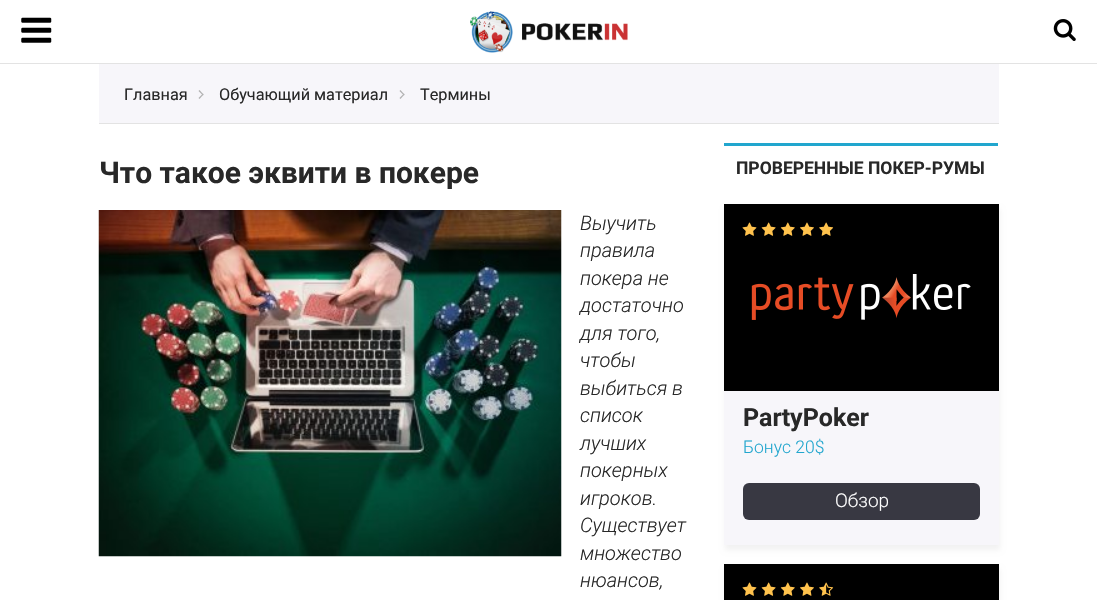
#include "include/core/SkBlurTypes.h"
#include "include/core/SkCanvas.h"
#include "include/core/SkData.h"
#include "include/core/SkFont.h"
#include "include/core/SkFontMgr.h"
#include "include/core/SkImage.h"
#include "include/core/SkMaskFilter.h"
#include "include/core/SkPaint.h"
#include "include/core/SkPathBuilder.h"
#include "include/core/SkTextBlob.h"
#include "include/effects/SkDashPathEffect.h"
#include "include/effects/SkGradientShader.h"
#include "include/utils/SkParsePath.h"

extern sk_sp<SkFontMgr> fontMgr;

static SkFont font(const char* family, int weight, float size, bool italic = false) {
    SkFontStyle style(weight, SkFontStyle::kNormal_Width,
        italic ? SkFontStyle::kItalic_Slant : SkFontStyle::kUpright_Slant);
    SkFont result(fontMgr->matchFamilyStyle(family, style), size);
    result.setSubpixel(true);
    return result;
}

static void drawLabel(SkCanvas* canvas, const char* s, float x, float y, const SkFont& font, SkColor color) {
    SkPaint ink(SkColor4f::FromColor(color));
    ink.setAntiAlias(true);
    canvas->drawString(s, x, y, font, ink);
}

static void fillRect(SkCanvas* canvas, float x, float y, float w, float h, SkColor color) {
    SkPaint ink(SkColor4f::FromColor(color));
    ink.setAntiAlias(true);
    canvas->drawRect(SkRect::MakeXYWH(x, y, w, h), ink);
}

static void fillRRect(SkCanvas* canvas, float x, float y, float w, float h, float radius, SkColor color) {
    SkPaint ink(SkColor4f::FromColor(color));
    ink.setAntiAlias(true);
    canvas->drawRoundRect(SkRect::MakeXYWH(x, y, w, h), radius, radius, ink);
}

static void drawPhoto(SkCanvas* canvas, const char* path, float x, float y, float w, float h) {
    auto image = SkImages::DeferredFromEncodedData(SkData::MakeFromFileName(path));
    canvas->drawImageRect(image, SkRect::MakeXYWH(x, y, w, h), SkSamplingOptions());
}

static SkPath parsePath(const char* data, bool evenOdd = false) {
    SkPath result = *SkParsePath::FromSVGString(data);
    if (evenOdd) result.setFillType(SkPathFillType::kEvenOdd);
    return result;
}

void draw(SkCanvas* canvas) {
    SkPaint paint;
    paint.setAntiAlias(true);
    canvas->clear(0xFFFFFFFF);
    fillRect(canvas, 0, 63, 1097, 1, 0xFFE3E3E3);
    drawPhoto(canvas, "assets/img1.png", 21, 17, 31, 26);
    drawPhoto(canvas, "assets/img2.png", 470, 11, 158, 42);
    drawPhoto(canvas, "assets/img3.png", 1053, 19, 23, 22);
    fillRect(canvas, 99, 64, 900, 59, 0xFFF7F6FA);
    fillRect(canvas, 99, 123, 900, 1, 0xFFE3E3E3);
    SkFont font1 = font("Roboto", 400, 16.25f);
    drawLabel(canvas, "Главная", 124, 100, font1, 0xFF282828);
    paint.setColor(0xFFB1B1B1);
    canvas->drawPath(parsePath("M198.5 91L199.5 90L203.5 94.5L203 95.5Z"), paint);
    canvas->drawPath(parsePath("M198.5 98L203 93.5L203.5 94.5L199.5 99Z"), paint);
    drawLabel(canvas, "Обучающий материал", 219, 100, font1, 0xFF282828);
    canvas->drawPath(parsePath("M399.5 91L400.5 90L404.5 94.5L404 95.5Z"), paint);
    canvas->drawPath(parsePath("M399.5 98L404 93.5L404.5 94.5L400.5 99Z"), paint);
    drawLabel(canvas, "Термины", 420, 100, font1, 0xFF282828);
    SkFont font2 = font("Roboto", 700, 30);
    drawLabel(canvas, "Что такое эквити в покере", 99, 183, font2, 0xFF282828);
    drawPhoto(canvas, "assets/img4.png", 98, 210, 464, 347);
    SkFont font3 = font("Roboto", 300, 20, true);
    drawLabel(canvas, "Выучить", 580, 230, font3, 0xFF282828);
    drawLabel(canvas, "правила", 580, 257, font3, 0xFF282828);
    drawLabel(canvas, "покера не", 580, 285, font3, 0xFF282828);
    drawLabel(canvas, "достаточно", 580, 312, font3, 0xFF282828);
    drawLabel(canvas, "для того,", 580, 340, font3, 0xFF282828);
    drawLabel(canvas, "чтобы", 580, 367, font3, 0xFF282828);
    drawLabel(canvas, "выбиться в", 580, 395, font3, 0xFF282828);
    drawLabel(canvas, "список", 580, 422, font3, 0xFF282828);
    drawLabel(canvas, "лучших", 580, 450, font3, 0xFF282828);
    drawLabel(canvas, "покерных", 580, 477, font3, 0xFF282828);
    drawLabel(canvas, "игроков.", 580, 505, font3, 0xFF282828);
    drawLabel(canvas, "Существует", 580, 532, font3, 0xFF282828);
    drawLabel(canvas, "множество", 580, 560, font3, 0xFF282828);
    drawLabel(canvas, "нюансов,", 580, 587, font3, 0xFF282828);
    fillRect(canvas, 724, 143, 274, 3, 0xFF21A6CE);
    SkFont font4 = font("Roboto", 700, 17.5f);
    drawLabel(canvas, "ПРОВЕРЕННЫЕ ПОКЕР-РУМЫ", 736, 174, font4, 0xFF282828);
    paint.setColor(0x0D000000);
    paint.setMaskFilter(SkMaskFilter::MakeBlur(kNormal_SkBlurStyle, 2.5f));
    canvas->drawRect(SkRect::MakeXYWH(725, 209, 275, 341), paint);
    paint.setMaskFilter(nullptr);
    fillRect(canvas, 724, 391, 275, 154, 0xFFF7F6FA);
    fillRect(canvas, 724, 204, 275, 187, 0xFF000000);
    drawPhoto(canvas, "assets/img5.png", 742, 222, 92, 14);
    drawPhoto(canvas, "assets/img6.png", 751, 274, 220, 46);
    SkFont font5 = font("Roboto", 700, 25);
    drawLabel(canvas, "PartyPoker", 743, 426, font5, 0xFF282828);
    SkFont font6 = font("Roboto", 300, 17.5f);
    drawLabel(canvas, "Бонус 20$", 743, 453, font6, 0xFF21A6CE);
    fillRRect(canvas, 743, 483, 237, 37, 6, 0xFF383842);
    SkFont font7 = font("Roboto", 300, 19);
    drawLabel(canvas, "Обзор", 835, 507, font7, 0xFFFFFFFF);
    paint.setMaskFilter(SkMaskFilter::MakeBlur(kNormal_SkBlurStyle, 2.5f));
    canvas->drawRect(SkRect::MakeXYWH(725, 569, 275, 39), paint);
    paint.setMaskFilter(nullptr);
    fillRect(canvas, 724, 564, 275, 36, 0xFF000000);
    drawPhoto(canvas, "assets/img7.png", 742, 582, 92, 14);
}
